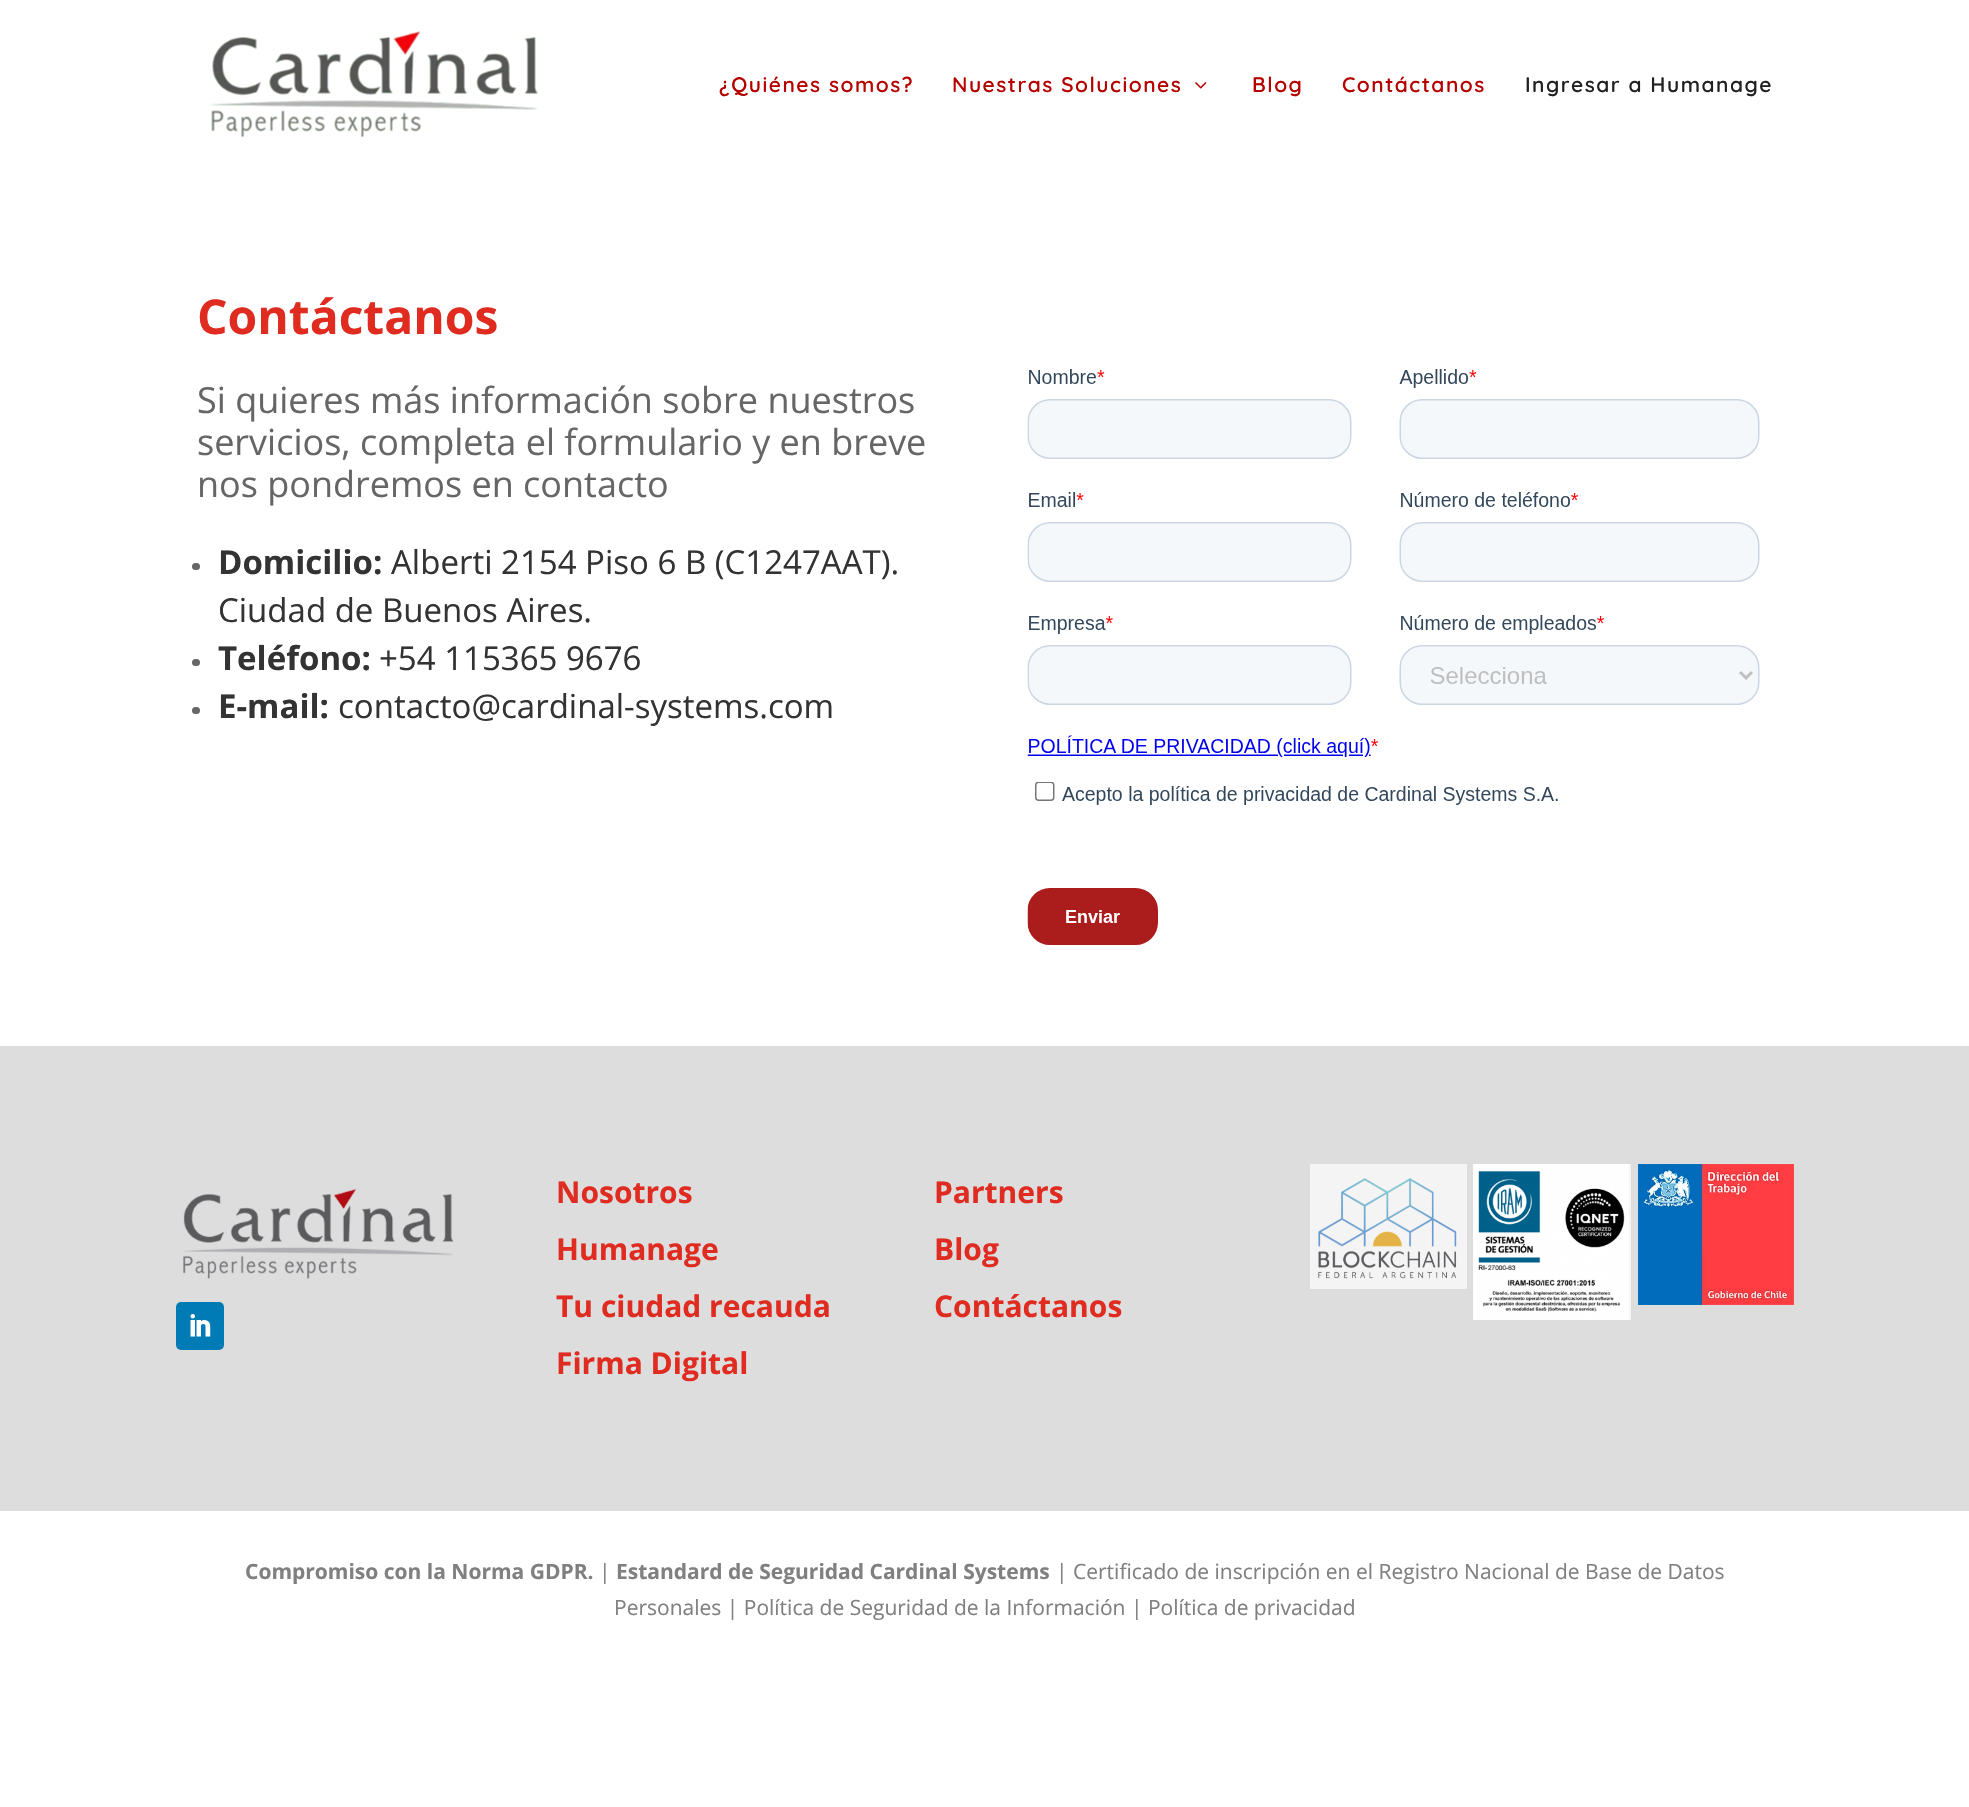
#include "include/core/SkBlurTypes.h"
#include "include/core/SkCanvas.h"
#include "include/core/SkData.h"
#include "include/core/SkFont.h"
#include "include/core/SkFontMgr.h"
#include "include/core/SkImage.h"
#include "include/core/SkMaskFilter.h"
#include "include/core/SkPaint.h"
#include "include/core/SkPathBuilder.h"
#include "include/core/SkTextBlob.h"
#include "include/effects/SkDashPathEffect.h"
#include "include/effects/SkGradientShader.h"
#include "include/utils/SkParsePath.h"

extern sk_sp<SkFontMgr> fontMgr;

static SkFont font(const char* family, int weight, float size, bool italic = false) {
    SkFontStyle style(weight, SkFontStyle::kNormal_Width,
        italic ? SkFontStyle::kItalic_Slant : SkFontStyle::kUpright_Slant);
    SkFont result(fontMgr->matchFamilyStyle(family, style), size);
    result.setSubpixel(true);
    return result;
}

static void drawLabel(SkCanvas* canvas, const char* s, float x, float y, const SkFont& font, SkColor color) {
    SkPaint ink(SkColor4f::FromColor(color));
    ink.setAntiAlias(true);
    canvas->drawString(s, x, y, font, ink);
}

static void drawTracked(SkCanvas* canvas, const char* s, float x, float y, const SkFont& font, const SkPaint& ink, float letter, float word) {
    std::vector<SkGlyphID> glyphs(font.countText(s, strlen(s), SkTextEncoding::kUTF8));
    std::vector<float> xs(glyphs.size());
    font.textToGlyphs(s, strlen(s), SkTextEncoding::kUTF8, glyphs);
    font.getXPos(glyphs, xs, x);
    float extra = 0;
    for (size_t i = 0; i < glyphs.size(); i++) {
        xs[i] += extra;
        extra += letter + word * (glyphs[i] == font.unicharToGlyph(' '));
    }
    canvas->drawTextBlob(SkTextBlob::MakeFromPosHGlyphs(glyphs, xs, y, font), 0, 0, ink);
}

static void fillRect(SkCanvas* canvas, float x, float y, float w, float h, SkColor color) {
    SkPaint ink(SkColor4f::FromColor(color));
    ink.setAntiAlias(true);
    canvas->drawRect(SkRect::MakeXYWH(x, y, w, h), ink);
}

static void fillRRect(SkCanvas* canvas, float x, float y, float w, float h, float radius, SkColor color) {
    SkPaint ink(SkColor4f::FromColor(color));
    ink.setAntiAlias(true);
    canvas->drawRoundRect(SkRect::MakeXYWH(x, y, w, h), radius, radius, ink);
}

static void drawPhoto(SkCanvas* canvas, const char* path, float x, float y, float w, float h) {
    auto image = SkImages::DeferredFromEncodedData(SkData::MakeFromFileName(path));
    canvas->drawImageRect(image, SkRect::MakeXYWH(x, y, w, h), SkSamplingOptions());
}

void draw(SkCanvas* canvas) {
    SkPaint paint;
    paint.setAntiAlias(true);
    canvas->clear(0xFFFFFFFF);
    drawPhoto(canvas, "assets/img1.png", 211, 31, 327, 107);
    SkFont font1 = font("Quicksand", 600, 21);
    paint.setColor(0xFFB50000);
    drawTracked(canvas, "¿Quiénes somos?", 719, 92, font1, paint, 1.5f, 0);
    drawTracked(canvas, "Nuestras Soluciones", 952, 92, font1, paint, 1.5f, 0);
    drawPhoto(canvas, "assets/img2.png", 1195, 82, 12, 7);
    drawTracked(canvas, "Blog", 1252, 92, font1, paint, 1.5f, 0);
    drawTracked(canvas, "Contáctanos", 1342, 92, font1, paint, 1.5f, 0);
    paint.setColor(0xFF212121);
    drawTracked(canvas, "Ingresar a Humanage", 1525, 92, font1, paint, 1.5f, 0);
    SkFont font2 = font("Open Sans", 700, 48);
    drawLabel(canvas, "Contáctanos", 197, 334, font2, 0xFFE02B20);
    SkFont font3 = font("Open Sans", 400, 36);
    drawLabel(canvas, "Si quieres más información sobre nuestros", 197, 413, font3, 0xFF666666);
    drawLabel(canvas, "servicios, completa el formulario y en breve", 197, 455, font3, 0xFF666666);
    drawLabel(canvas, "nos pondremos en contacto", 197, 497, font3, 0xFF666666);
    fillRRect(canvas, 192, 563, 8, 7, 3.5f, 0xFF666666);
    SkFont font4 = font("Open Sans", 700, 33);
    drawLabel(canvas, "Domicilio:", 218, 574, font4, 0xFF333333);
    SkFont font5 = font("Open Sans", 400, 33);
    drawLabel(canvas, "Alberti 2154 Piso 6 B (C1247AAT).", 391, 574, font5, 0xFF333333);
    drawLabel(canvas, "Ciudad de Buenos Aires.", 218, 622, font5, 0xFF333333);
    fillRRect(canvas, 192, 659, 8, 7, 3.5f, 0xFF666666);
    drawLabel(canvas, "Teléfono:", 218, 670, font4, 0xFF333333);
    drawLabel(canvas, "+54 115365 9676", 379, 670, font5, 0xFF333333);
    fillRRect(canvas, 192, 707, 8, 7, 3.5f, 0xFF666666);
    drawLabel(canvas, "E-mail:", 218, 718, font4, 0xFF333333);
    drawLabel(canvas, "contacto@cardinal-systems.com", 338, 718, font5, 0xFF333333);
    drawPhoto(canvas, "assets/img3.png", 1027, 369, 733, 576);
    fillRect(canvas, 0, 1046, 1969, 465, 0xFFDDDDDD);
    drawPhoto(canvas, "assets/img4.png", 183, 1189, 270, 90);
    fillRRect(canvas, 176, 1302, 48, 48, 5, 0xFF007BB6);
    drawPhoto(canvas, "assets/img5.png", 190, 1314, 21, 23);
    SkFont font6 = font("Open Sans", 700, 30);
    drawLabel(canvas, "Nosotros", 556, 1203, font6, 0xFFE02B20);
    drawLabel(canvas, "Humanage", 556, 1260, font6, 0xFFE02B20);
    drawLabel(canvas, "Tu ciudad recauda", 556, 1317, font6, 0xFFE02B20);
    drawLabel(canvas, "Firma Digital", 556, 1374, font6, 0xFFE02B20);
    drawLabel(canvas, "Partners", 934, 1203, font6, 0xFFE02B20);
    drawLabel(canvas, "Blog", 934, 1260, font6, 0xFFE02B20);
    drawLabel(canvas, "Contáctanos", 934, 1317, font6, 0xFFE02B20);
    fillRect(canvas, 1310, 1164, 157, 125, 0xFFF4F4F4);
    drawPhoto(canvas, "assets/img6.png", 1318, 1178, 139, 101);
    fillRect(canvas, 1629, 1164, 2, 156, 0xFFF4F4F4);
    drawPhoto(canvas, "assets/img7.png", 1473, 1164, 156, 156);
    drawPhoto(canvas, "assets/img8.png", 1638, 1164, 156, 141);
    SkFont font7 = font("Open Sans", 700, 21);
    drawLabel(canvas, "Compromiso con la Norma GDPR.", 245, 1579, font7, 0xFF808080);
    SkFont font8 = font("Open Sans", 400, 21);
    drawLabel(canvas, "|", 599, 1579, font8, 0xFF808080);
    drawLabel(canvas, "Estandard de Seguridad Cardinal Systems", 616, 1579, font7, 0xFF808080);
    drawLabel(canvas, "| Certificado de inscripción en el Registro Nacional de Base de Datos", 1056, 1579, font8, 0xFF808080);
    drawLabel(canvas, "Personales | Política de Seguridad de la Información | Política de privacidad", 614, 1615, font8, 0xFF808080);
}
